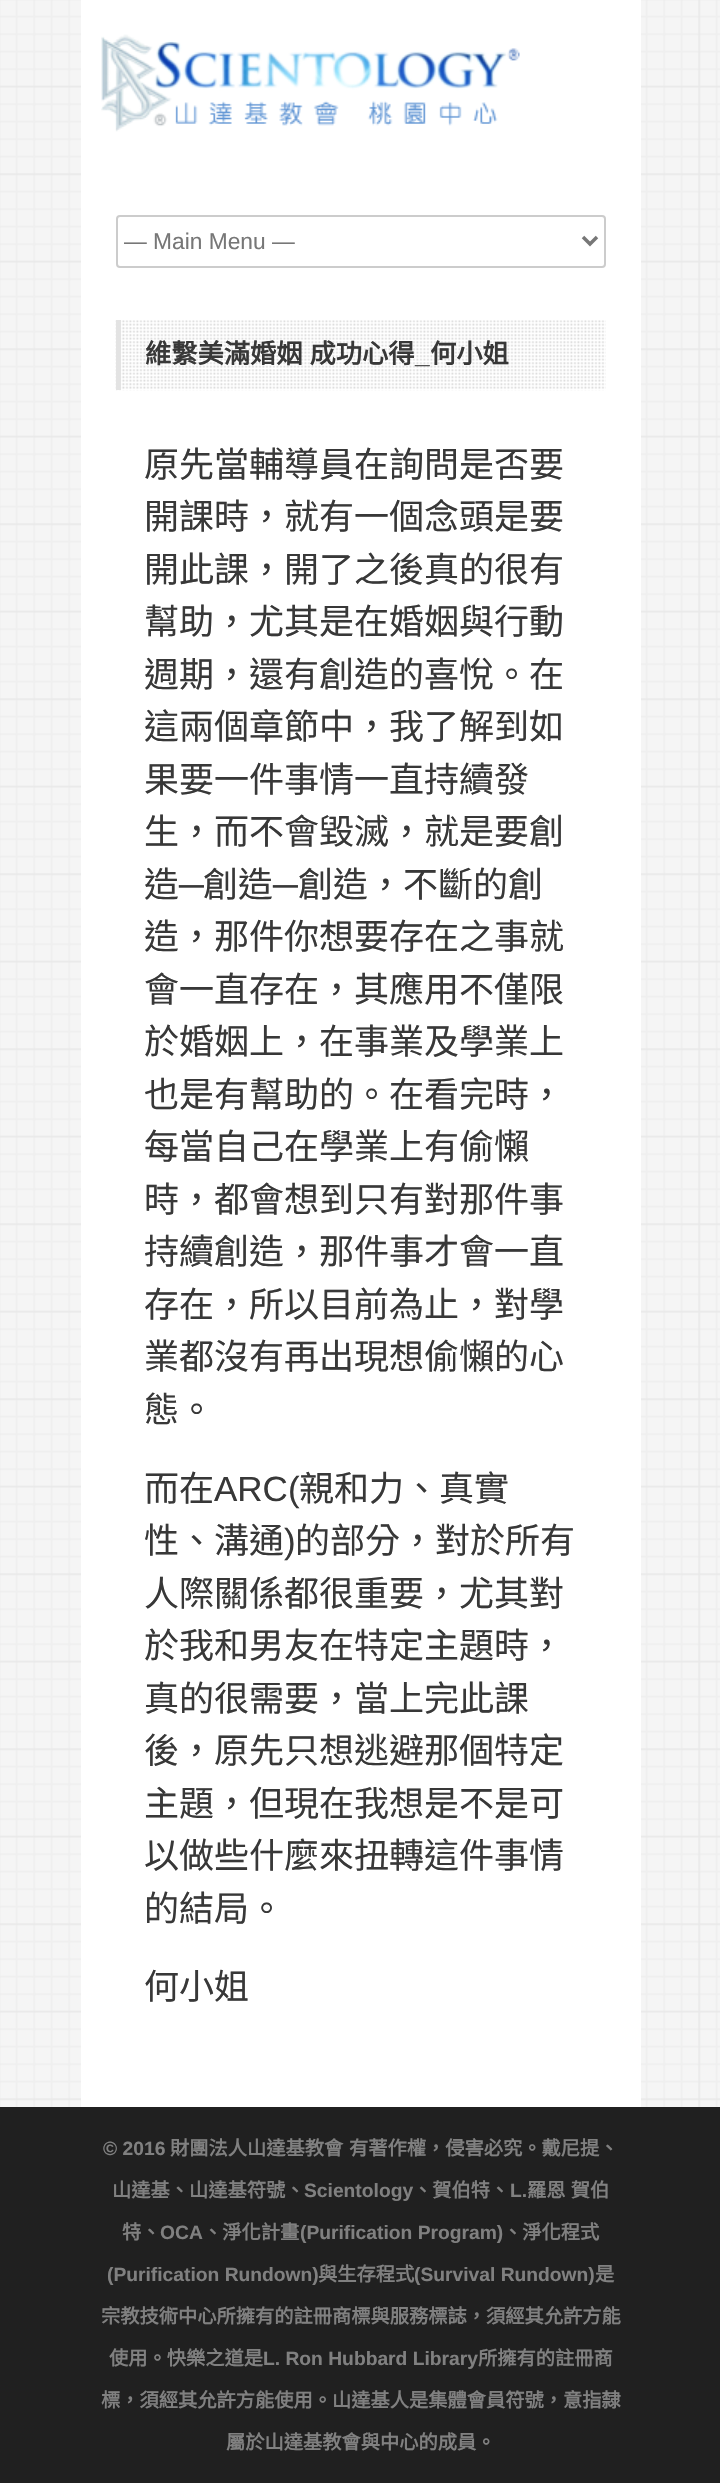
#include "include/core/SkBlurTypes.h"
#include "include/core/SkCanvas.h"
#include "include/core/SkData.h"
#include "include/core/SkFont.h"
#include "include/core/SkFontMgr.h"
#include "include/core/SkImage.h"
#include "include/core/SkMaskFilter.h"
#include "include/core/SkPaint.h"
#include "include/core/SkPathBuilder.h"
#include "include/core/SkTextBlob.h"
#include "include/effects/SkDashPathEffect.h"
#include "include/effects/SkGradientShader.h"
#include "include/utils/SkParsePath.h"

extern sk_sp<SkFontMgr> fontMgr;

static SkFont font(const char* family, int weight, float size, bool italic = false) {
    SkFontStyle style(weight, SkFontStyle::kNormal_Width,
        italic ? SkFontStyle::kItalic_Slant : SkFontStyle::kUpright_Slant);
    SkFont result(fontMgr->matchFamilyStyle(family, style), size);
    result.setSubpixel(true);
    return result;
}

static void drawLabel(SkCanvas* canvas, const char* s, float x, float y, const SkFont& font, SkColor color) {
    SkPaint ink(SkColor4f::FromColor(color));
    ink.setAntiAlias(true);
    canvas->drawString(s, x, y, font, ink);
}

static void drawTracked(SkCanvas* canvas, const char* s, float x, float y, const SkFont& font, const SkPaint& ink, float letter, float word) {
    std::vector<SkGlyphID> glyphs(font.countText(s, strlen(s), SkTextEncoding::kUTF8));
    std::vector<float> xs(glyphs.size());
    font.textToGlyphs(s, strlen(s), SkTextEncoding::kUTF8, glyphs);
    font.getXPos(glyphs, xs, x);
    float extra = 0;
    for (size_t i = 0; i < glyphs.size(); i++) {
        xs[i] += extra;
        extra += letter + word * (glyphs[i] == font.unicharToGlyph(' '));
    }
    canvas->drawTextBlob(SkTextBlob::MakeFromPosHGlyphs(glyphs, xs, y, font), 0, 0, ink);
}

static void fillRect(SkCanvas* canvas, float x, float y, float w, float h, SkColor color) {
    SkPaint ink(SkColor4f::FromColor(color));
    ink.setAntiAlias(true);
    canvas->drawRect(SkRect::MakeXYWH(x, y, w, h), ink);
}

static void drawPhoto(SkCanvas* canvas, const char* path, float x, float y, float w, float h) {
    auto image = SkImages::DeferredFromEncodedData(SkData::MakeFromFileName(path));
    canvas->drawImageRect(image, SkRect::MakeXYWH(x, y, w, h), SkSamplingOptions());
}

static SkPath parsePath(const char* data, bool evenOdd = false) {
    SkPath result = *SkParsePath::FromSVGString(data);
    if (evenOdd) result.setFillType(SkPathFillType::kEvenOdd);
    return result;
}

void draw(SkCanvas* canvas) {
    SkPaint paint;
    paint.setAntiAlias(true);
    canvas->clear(0xFFF5F5F5);
    drawPhoto(canvas, "assets/img1.png", 0, 0, 720, 2107);
    fillRect(canvas, 81, 0, 560, 2107, 0xFFFFFFFF);
    drawPhoto(canvas, "assets/img2.png", 101, 34, 419, 98);
    paint.setStroke(true);
    paint.setStrokeWidth(2);
    paint.setColor(0xFFCCCCCC);
    canvas->drawRoundRect(SkRect::MakeXYWH(117, 216, 488, 51), 3, 3, paint);
    paint.setStrokeWidth(3.5f);
    paint.setColor(0xFF777777);
    canvas->drawPath(parsePath("M583 237L590 244L597 237"), paint);
    SkFont font1 = font("Liberation Sans", 400, 22.75f);
    drawLabel(canvas, "— Main Menu —", 124, 249, font1, 0xFF777777);
    drawPhoto(canvas, "assets/img3.png", 115, 320, 491, 71);
    fillRect(canvas, 116, 320, 5, 70, 0xFFE3E3E3);
    SkFont font2 = font("Noto Sans CJK TC", 700, 26.25f);
    paint.setStroke(false);
    paint.setColor(0xFF383838);
    drawTracked(canvas, "維繫美滿婚姻 成功心得", 145, 363, font2, paint, 0, 1);
    SkFont font3 = font("Liberation Sans", 700, 26.25f);
    drawLabel(canvas, "_", 415, 363, font3, 0xFF383838);
    drawLabel(canvas, "何小姐", 430, 363, font2, 0xFF383838);
    SkFont font4 = font("Noto Sans CJK TC", 400, 35);
    drawLabel(canvas, "原先當輔導員在詢問是否要", 144, 477, font4, 0xFF383838);
    drawLabel(canvas, "開課時，就有一個念頭是要", 144, 529, font4, 0xFF383838);
    drawLabel(canvas, "開此課，開了之後真的很有", 144, 582, font4, 0xFF383838);
    drawLabel(canvas, "幫助，尤其是在婚姻與行動", 144, 634, font4, 0xFF383838);
    drawLabel(canvas, "週期，還有創造的喜悅。在", 144, 687, font4, 0xFF383838);
    drawLabel(canvas, "這兩個章節中，我了解到如", 144, 739, font4, 0xFF383838);
    drawLabel(canvas, "果要一件事情一直持續發", 144, 792, font4, 0xFF383838);
    drawLabel(canvas, "生，而不會毀滅，就是要創", 144, 844, font4, 0xFF383838);
    drawLabel(canvas, "造", 144, 897, font4, 0xFF383838);
    SkFont font5 = font("Liberation Sans", 400, 35);
    drawLabel(canvas, "─", 179, 897, font5, 0xFF383838);
    drawLabel(canvas, "創造", 203, 897, font4, 0xFF383838);
    drawLabel(canvas, "─", 273, 897, font5, 0xFF383838);
    drawLabel(canvas, "創造，不斷的創", 298, 897, font4, 0xFF383838);
    drawLabel(canvas, "造，那件你想要存在之事就", 144, 949, font4, 0xFF383838);
    drawLabel(canvas, "會一直存在，其應用不僅限", 144, 1002, font4, 0xFF383838);
    drawLabel(canvas, "於婚姻上，在事業及學業上", 144, 1054, font4, 0xFF383838);
    drawLabel(canvas, "也是有幫助的。在看完時，", 144, 1107, font4, 0xFF383838);
    drawLabel(canvas, "每當自己在學業上有偷懶", 144, 1159, font4, 0xFF383838);
    drawLabel(canvas, "時，都會想到只有對那件事", 144, 1212, font4, 0xFF383838);
    drawLabel(canvas, "持續創造，那件事才會一直", 144, 1264, font4, 0xFF383838);
    drawLabel(canvas, "存在，所以目前為止，對學", 144, 1317, font4, 0xFF383838);
    drawLabel(canvas, "業都沒有再出現想偷懶的心", 144, 1369, font4, 0xFF383838);
    drawLabel(canvas, "態。", 144, 1422, font4, 0xFF383838);
    drawLabel(canvas, "而在", 144, 1501, font4, 0xFF383838);
    drawLabel(canvas, "ARC(", 214, 1501, font5, 0xFF383838);
    drawLabel(canvas, "親和力、真實", 299, 1501, font4, 0xFF383838);
    drawLabel(canvas, "性、溝通", 144, 1553, font4, 0xFF383838);
    drawLabel(canvas, ")", 284, 1553, font5, 0xFF383838);
    drawLabel(canvas, "的部分，對於所有", 295, 1553, font4, 0xFF383838);
    drawLabel(canvas, "人際關係都很重要，尤其對", 144, 1606, font4, 0xFF383838);
    drawLabel(canvas, "於我和男友在特定主題時，", 144, 1658, font4, 0xFF383838);
    drawLabel(canvas, "真的很需要，當上完此課", 144, 1711, font4, 0xFF383838);
    drawLabel(canvas, "後，原先只想逃避那個特定", 144, 1763, font4, 0xFF383838);
    drawLabel(canvas, "主題，但現在我想是不是可", 144, 1816, font4, 0xFF383838);
    drawLabel(canvas, "以做些什麼來扭轉這件事情", 144, 1868, font4, 0xFF383838);
    drawLabel(canvas, "的結局。", 144, 1921, font4, 0xFF383838);
    drawLabel(canvas, "何小姐", 144, 1999, font4, 0xFF383838);
    fillRect(canvas, 0, 2107, 720, 376, 0xFF202020);
    SkFont font6 = font("Liberation Sans", 700, 19.25f);
    drawLabel(canvas, "© 2016", 103, 2155, font6, 0xFF808080);
    SkFont font7 = font("Noto Sans CJK TC", 700, 19.25f);
    drawLabel(canvas, "財團法人山達基教會", 170, 2155, font7, 0xFF808080);
    drawLabel(canvas, "有著作權，侵害必究。戴尼提、", 349, 2155, font7, 0xFF808080);
    drawLabel(canvas, "山達基、山達基符號、", 112, 2197, font7, 0xFF808080);
    drawLabel(canvas, "Scientology", 304, 2197, font6, 0xFF808080);
    drawLabel(canvas, "、賀伯特、", 413, 2197, font7, 0xFF808080);
    drawLabel(canvas, "L.", 510, 2197, font6, 0xFF808080);
    paint.setColor(0xFF808080);
    drawTracked(canvas, "羅恩 賀伯", 527, 2197, font7, paint, 0, 1);
    drawLabel(canvas, "特、", 122, 2239, font7, 0xFF808080);
    drawLabel(canvas, "OCA", 160, 2239, font6, 0xFF808080);
    drawLabel(canvas, "、淨化計畫", 203, 2239, font7, 0xFF808080);
    drawLabel(canvas, "(Purification Program)", 300, 2239, font6, 0xFF808080);
    drawLabel(canvas, "、淨化程式", 503, 2239, font7, 0xFF808080);
    drawLabel(canvas, "(Purification Rundown)", 107, 2281, font6, 0xFF808080);
    drawLabel(canvas, "與生存程式", 318, 2281, font7, 0xFF808080);
    drawLabel(canvas, "(Survival Rundown)", 414, 2281, font6, 0xFF808080);
    drawLabel(canvas, "是", 595, 2281, font7, 0xFF808080);
    drawLabel(canvas, "宗教技術中心所擁有的註冊商標與服務標誌，須經其允許方能", 101, 2323, font7, 0xFF808080);
    drawLabel(canvas, "使用。快樂之道是", 109, 2365, font7, 0xFF808080);
    drawLabel(canvas, "L. Ron Hubbard Library", 263, 2365, font6, 0xFF808080);
    drawLabel(canvas, "所擁有的註冊商", 478, 2365, font7, 0xFF808080);
    drawLabel(canvas, "標，須經其允許方能使用。山達基人是集體會員符號，意指隸", 101, 2407, font7, 0xFF808080);
    drawLabel(canvas, "屬於山達基教會與中心的成員。", 226, 2449, font7, 0xFF808080);
}
